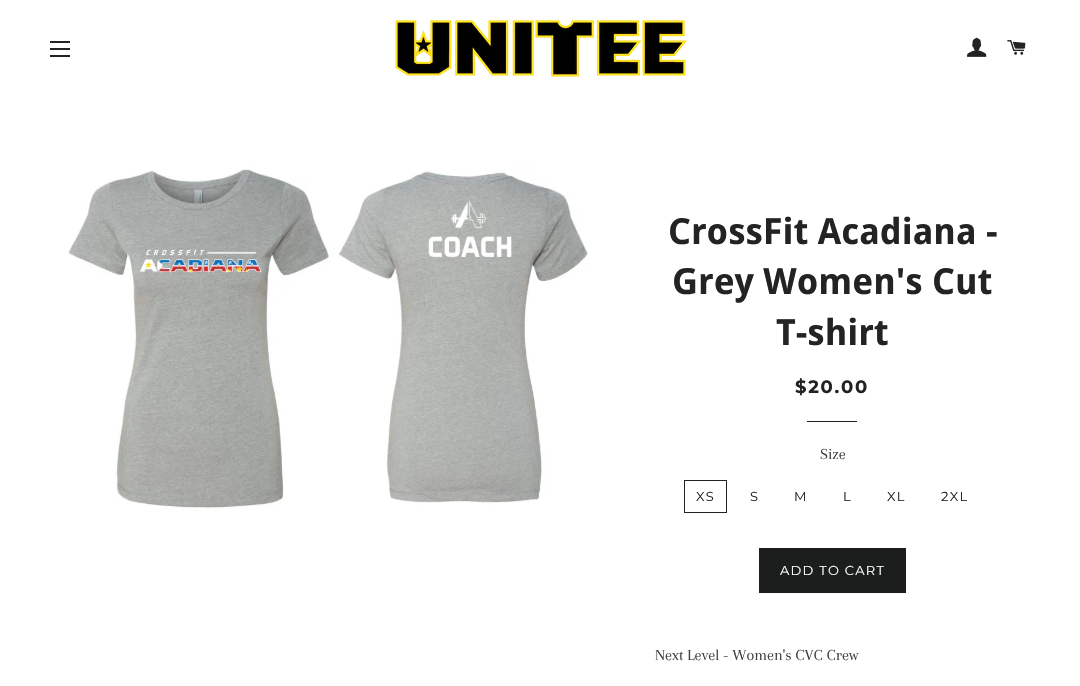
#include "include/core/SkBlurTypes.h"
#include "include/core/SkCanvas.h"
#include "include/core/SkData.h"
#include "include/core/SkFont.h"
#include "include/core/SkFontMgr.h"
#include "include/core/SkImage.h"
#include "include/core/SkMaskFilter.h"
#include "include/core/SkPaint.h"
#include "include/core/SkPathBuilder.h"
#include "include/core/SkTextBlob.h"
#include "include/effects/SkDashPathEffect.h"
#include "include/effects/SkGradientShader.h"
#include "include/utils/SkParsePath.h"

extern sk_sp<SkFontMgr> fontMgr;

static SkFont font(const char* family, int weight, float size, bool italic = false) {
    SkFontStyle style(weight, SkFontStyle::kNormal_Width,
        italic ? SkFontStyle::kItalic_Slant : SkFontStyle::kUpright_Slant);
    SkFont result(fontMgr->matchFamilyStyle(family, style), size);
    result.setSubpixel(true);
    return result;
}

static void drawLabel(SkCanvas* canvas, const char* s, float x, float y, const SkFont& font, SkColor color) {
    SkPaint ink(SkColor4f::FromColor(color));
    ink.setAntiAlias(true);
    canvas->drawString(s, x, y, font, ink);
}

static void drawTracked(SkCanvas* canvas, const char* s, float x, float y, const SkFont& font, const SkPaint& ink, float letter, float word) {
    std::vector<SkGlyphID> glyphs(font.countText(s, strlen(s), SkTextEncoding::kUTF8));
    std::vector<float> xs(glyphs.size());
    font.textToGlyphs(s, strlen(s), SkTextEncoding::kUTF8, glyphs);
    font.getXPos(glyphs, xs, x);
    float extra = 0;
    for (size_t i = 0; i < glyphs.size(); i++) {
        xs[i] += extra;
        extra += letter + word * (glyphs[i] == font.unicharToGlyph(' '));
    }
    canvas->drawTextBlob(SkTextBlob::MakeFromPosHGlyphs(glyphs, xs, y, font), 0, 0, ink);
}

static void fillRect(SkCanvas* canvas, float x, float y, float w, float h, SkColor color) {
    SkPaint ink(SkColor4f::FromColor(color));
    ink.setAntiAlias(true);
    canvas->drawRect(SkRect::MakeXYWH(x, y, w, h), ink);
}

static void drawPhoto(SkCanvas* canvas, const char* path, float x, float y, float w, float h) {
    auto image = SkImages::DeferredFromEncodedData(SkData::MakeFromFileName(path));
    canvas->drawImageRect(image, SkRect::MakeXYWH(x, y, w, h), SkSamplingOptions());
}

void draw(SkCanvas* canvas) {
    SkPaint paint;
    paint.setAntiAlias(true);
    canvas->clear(0xFFFFFFFF);
    fillRect(canvas, 50, 41, 20, 2, 0xFF222323);
    fillRect(canvas, 50, 48, 20, 2, 0xFF222323);
    fillRect(canvas, 50, 55, 20, 2, 0xFF222323);
    drawPhoto(canvas, "assets/img1.png", 395, 20, 292, 57);
    drawPhoto(canvas, "assets/img2.png", 967, 37, 20, 20);
    drawPhoto(canvas, "assets/img3.png", 1007, 40, 19, 15);
    drawPhoto(canvas, "assets/img4.png", 50, 162, 555, 354);
    SkFont font1 = font("Droid Sans", 700, 36);
    drawLabel(canvas, "CrossFit Acadiana -", 668, 244, font1, 0xFF222323);
    drawLabel(canvas, "Grey Women's Cut", 672, 294, font1, 0xFF222323);
    drawLabel(canvas, "T-shirt", 776, 345, font1, 0xFF222323);
    SkFont font2 = font("Montserrat", 700, 18);
    paint.setColor(0xFF222323);
    drawTracked(canvas, "$20.00", 795, 393, font2, paint, 1.75f, 0);
    fillRect(canvas, 807, 421, 50, 1, 0xFF1C1D1D);
    SkFont font3 = font("Arapey", 400, 16);
    drawLabel(canvas, "Size", 820, 459, font3, 0xFF3D3F3F);
    paint.setStroke(true);
    paint.setStrokeWidth(1);
    canvas->drawRect(SkRect::MakeXYWH(684.5f, 480.5f, 42, 32), paint);
    SkFont font4 = font("Montserrat", 400, 13);
    paint.setStroke(false);
    drawTracked(canvas, "XS", 696, 501, font4, paint, 1.25f, 0);
    drawTracked(canvas, "S", 750, 501, font4, paint, 1.25f, 0);
    drawTracked(canvas, "M", 794, 501, font4, paint, 1.25f, 0);
    drawTracked(canvas, "L", 843, 501, font4, paint, 1.25f, 0);
    drawTracked(canvas, "XL", 887, 501, font4, paint, 1.25f, 0);
    drawTracked(canvas, "2XL", 941, 501, font4, paint, 1.25f, 0);
    fillRect(canvas, 759, 548, 147, 45, 0xFF1C1D1D);
    paint.setColor(0xFFFFFFFF);
    drawTracked(canvas, "ADD TO CART", 780, 575, font4, paint, 1.25f, 0);
    drawLabel(canvas, "Next Level - Women's CVC Crew", 655, 660, font3, 0xFF3D3F3F);
}
